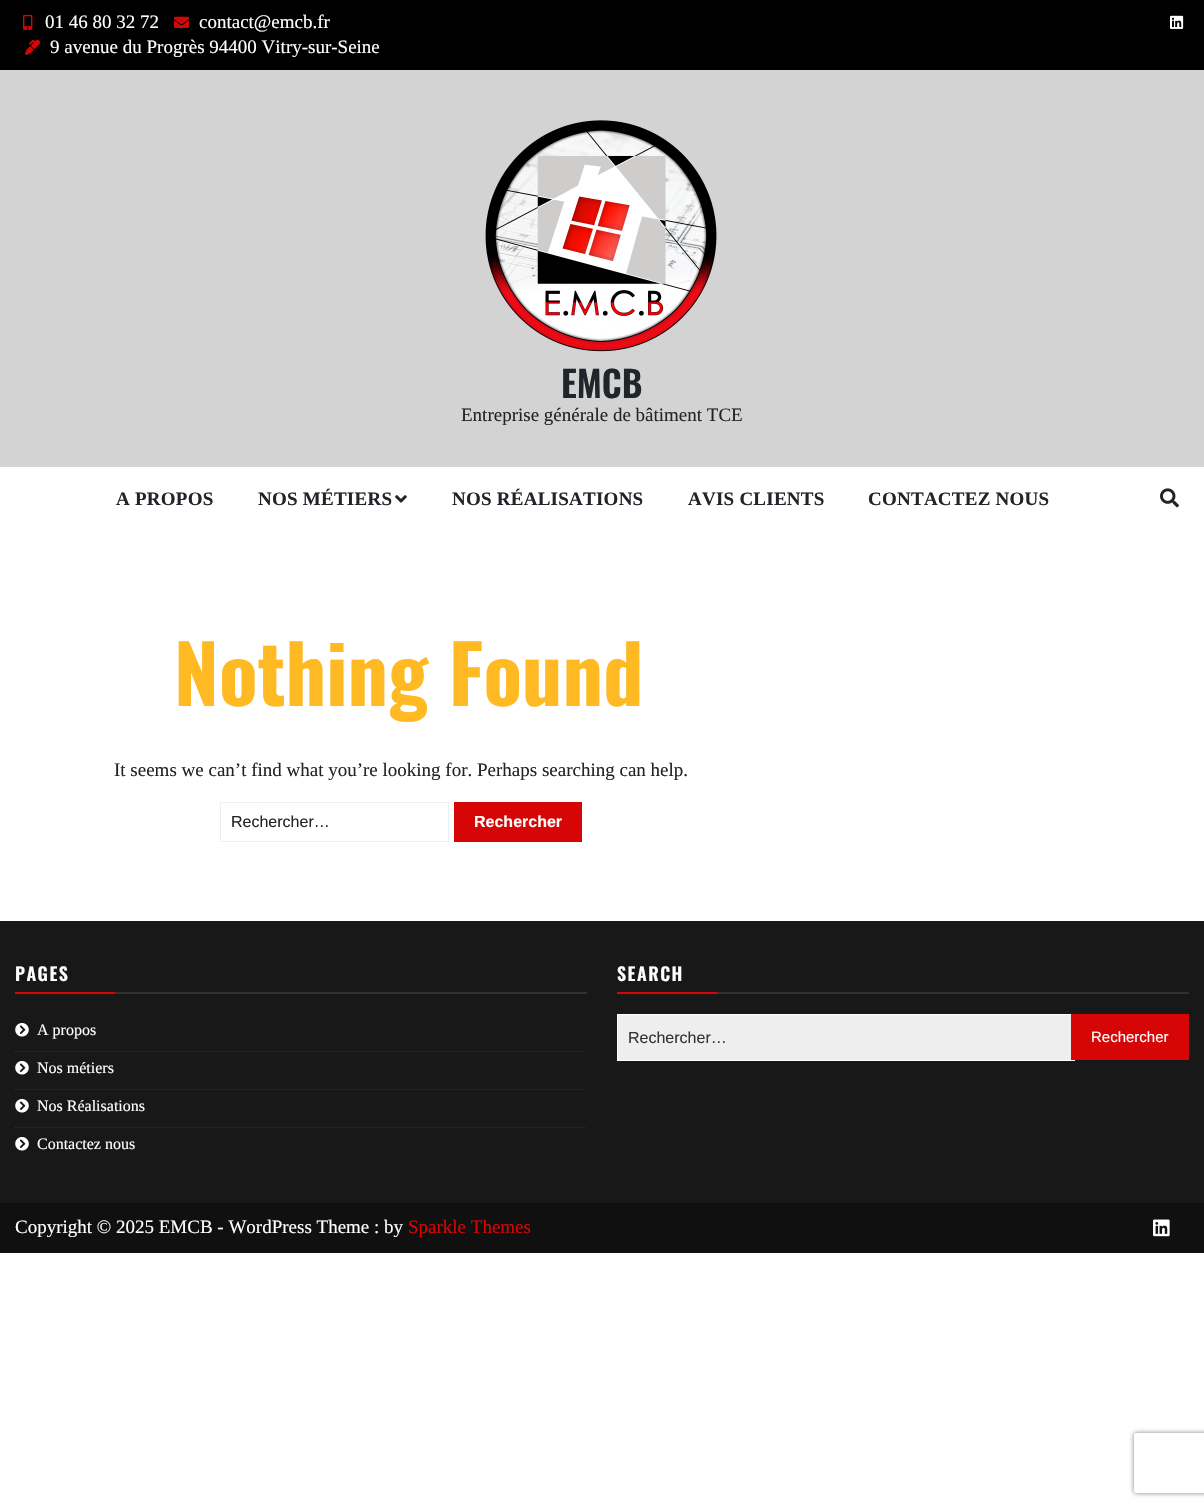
#include "include/core/SkBlurTypes.h"
#include "include/core/SkCanvas.h"
#include "include/core/SkData.h"
#include "include/core/SkFont.h"
#include "include/core/SkFontMgr.h"
#include "include/core/SkImage.h"
#include "include/core/SkMaskFilter.h"
#include "include/core/SkPaint.h"
#include "include/core/SkPathBuilder.h"
#include "include/core/SkTextBlob.h"
#include "include/effects/SkDashPathEffect.h"
#include "include/effects/SkGradientShader.h"
#include "include/utils/SkParsePath.h"

extern sk_sp<SkFontMgr> fontMgr;

static SkFont font(const char* family, int weight, float size, bool italic = false) {
    SkFontStyle style(weight, SkFontStyle::kNormal_Width,
        italic ? SkFontStyle::kItalic_Slant : SkFontStyle::kUpright_Slant);
    SkFont result(fontMgr->matchFamilyStyle(family, style), size);
    result.setSubpixel(true);
    return result;
}

static void drawLabel(SkCanvas* canvas, const char* s, float x, float y, const SkFont& font, SkColor color) {
    SkPaint ink(SkColor4f::FromColor(color));
    ink.setAntiAlias(true);
    canvas->drawString(s, x, y, font, ink);
}

static void drawTracked(SkCanvas* canvas, const char* s, float x, float y, const SkFont& font, const SkPaint& ink, float letter, float word) {
    std::vector<SkGlyphID> glyphs(font.countText(s, strlen(s), SkTextEncoding::kUTF8));
    std::vector<float> xs(glyphs.size());
    font.textToGlyphs(s, strlen(s), SkTextEncoding::kUTF8, glyphs);
    font.getXPos(glyphs, xs, x);
    float extra = 0;
    for (size_t i = 0; i < glyphs.size(); i++) {
        xs[i] += extra;
        extra += letter + word * (glyphs[i] == font.unicharToGlyph(' '));
    }
    canvas->drawTextBlob(SkTextBlob::MakeFromPosHGlyphs(glyphs, xs, y, font), 0, 0, ink);
}

static void fillRect(SkCanvas* canvas, float x, float y, float w, float h, SkColor color) {
    SkPaint ink(SkColor4f::FromColor(color));
    ink.setAntiAlias(true);
    canvas->drawRect(SkRect::MakeXYWH(x, y, w, h), ink);
}

static void drawPhoto(SkCanvas* canvas, const char* path, float x, float y, float w, float h) {
    auto image = SkImages::DeferredFromEncodedData(SkData::MakeFromFileName(path));
    canvas->drawImageRect(image, SkRect::MakeXYWH(x, y, w, h), SkSamplingOptions());
}

static SkPath parsePath(const char* data, bool evenOdd = false) {
    SkPath result = *SkParsePath::FromSVGString(data);
    if (evenOdd) result.setFillType(SkPathFillType::kEvenOdd);
    return result;
}

void draw(SkCanvas* canvas) {
    SkPaint paint;
    paint.setAntiAlias(true);
    canvas->clear(0xFFFFFFFF);
    fillRect(canvas, 0, 0, 1204, 70, 0xFF000000);
    drawPhoto(canvas, "assets/img1.png", 23, 14, 10, 16);
    SkFont font1 = font("Liberation Serif", 400, 19);
    drawLabel(canvas, "01 46 80 32 72", 45, 28, font1, 0xFFFFFFFF);
    drawPhoto(canvas, "assets/img2.png", 174, 16, 15, 12);
    drawLabel(canvas, "contact@emcb.fr", 199, 28, font1, 0xFFFFFFFF);
    drawPhoto(canvas, "assets/img3.png", 25, 39, 15, 16);
    drawLabel(canvas, "9 avenue du Progrès 94400 Vitry-sur-Seine", 50, 53, font1, 0xFFFFFFFF);
    drawPhoto(canvas, "assets/img4.png", 1170, 15, 14, 14);
    fillRect(canvas, 0, 70, 1204, 397, 0xFFD3D3D3);
    drawPhoto(canvas, "assets/img5.png", 485, 120, 232, 232);
    SkFont font2 = font("Oswald", 600, 36);
    drawLabel(canvas, "EMCB", 561, 398, font2, 0xFF212529);
    drawLabel(canvas, "Entreprise générale de bâtiment TCE", 461, 421, font1, 0xFF212529);
    SkFont font3 = font("Liberation Serif", 700, 19);
    paint.setColor(0xFF212529);
    drawTracked(canvas, "A PROPOS", 116, 505, font3, paint, 0.25f, 0);
    drawTracked(canvas, "NOS MÉTIERS", 258, 505, font3, paint, 0.25f, 0);
    drawPhoto(canvas, "assets/img6.png", 395, 495, 12, 8);
    drawTracked(canvas, "NOS RÉALISATIONS", 452, 505, font3, paint, 0.25f, 0);
    drawTracked(canvas, "AVIS CLIENTS", 688, 505, font3, paint, 0.25f, 0);
    drawTracked(canvas, "CONTACTEZ NOUS", 868, 505, font3, paint, 0.25f, 0);
    drawPhoto(canvas, "assets/img7.png", 1160, 488, 19, 20);
    SkFont font4 = font("Oswald", 700, 80);
    drawLabel(canvas, "Nothing Found", 174, 706, font4, 0xFFFFB923);
    drawLabel(canvas, "It seems we can’t find what you’re looking for. Perhaps searching can help.", 114, 776, font1, 0xFF212529);
    paint.setStroke(true);
    paint.setStrokeWidth(1);
    paint.setColor(0xFFEEEEEE);
    canvas->drawRect(SkRect::MakeXYWH(220.5f, 802.5f, 228, 39), paint);
    SkFont font5 = font("Liberation Sans", 400, 16);
    drawLabel(canvas, "Rechercher…", 231, 827, font5, 0xFF212529);
    fillRect(canvas, 454, 802, 128, 40, 0xFFD60606);
    SkFont font6 = font("Liberation Sans", 700, 16);
    drawLabel(canvas, "Rechercher", 474, 827, font6, 0xFFFFFFFF);
    fillRect(canvas, 0, 921, 1204, 282, 0xFF191818);
    fillRect(canvas, 115, 992, 472, 2, 0xFF313131);
    SkFont font7 = font("Oswald", 600, 18);
    paint.setStroke(false);
    paint.setColor(0xFFFFFFFF);
    drawTracked(canvas, "PAGES", 15, 981, font7, paint, 1.5f, 0);
    fillRect(canvas, 15, 992, 100, 2, 0xFFD60606);
    paint.setStroke(true);
    paint.setColor(0xFF2E2E2E);
    paint.setPathEffect(SkDashPathEffect::Make({{1, 1}}, 0));
    canvas->drawPath(parsePath("M15 1051.5H587"), paint);
    paint.setPathEffect(nullptr);
    drawPhoto(canvas, "assets/img8.png", 15, 1023, 14, 14);
    SkFont font8 = font("Liberation Serif", 400, 16);
    drawLabel(canvas, "A propos", 37, 1035, font8, 0xFFFFFFFF);
    paint.setPathEffect(SkDashPathEffect::Make({{1, 1}}, 0));
    canvas->drawPath(parsePath("M15 1089.5H587"), paint);
    paint.setPathEffect(nullptr);
    drawPhoto(canvas, "assets/img8.png", 15, 1061, 14, 14);
    drawLabel(canvas, "Nos métiers", 37, 1073, font8, 0xFFFFFFFF);
    paint.setPathEffect(SkDashPathEffect::Make({{1, 1}}, 0));
    canvas->drawPath(parsePath("M15 1127.5H587"), paint);
    paint.setPathEffect(nullptr);
    drawPhoto(canvas, "assets/img8.png", 15, 1099, 14, 14);
    drawLabel(canvas, "Nos Réalisations", 37, 1111, font8, 0xFFFFFFFF);
    drawPhoto(canvas, "assets/img8.png", 15, 1137, 14, 14);
    drawLabel(canvas, "Contactez nous", 37, 1149, font8, 0xFFFFFFFF);
    fillRect(canvas, 717, 992, 472, 2, 0xFF313131);
    paint.setStroke(false);
    paint.setColor(0xFFFFFFFF);
    drawTracked(canvas, "SEARCH", 617, 981, font7, paint, 1.5f, 0);
    fillRect(canvas, 617, 992, 100, 2, 0xFFD60606);
    fillRect(canvas, 618, 1015, 453, 45, 0xFFEEEEEE);
    paint.setStroke(true);
    canvas->drawRect(SkRect::MakeXYWH(617.5f, 1014.5f, 457, 46), paint);
    drawLabel(canvas, "Rechercher…", 628, 1043, font5, 0xFF333333);
    fillRect(canvas, 1071, 1014, 118, 46, 0xFFD60606);
    SkFont font9 = font("Liberation Sans", 400, 15);
    drawLabel(canvas, "Rechercher", 1091, 1042, font9, 0xFFFFFFFF);
    fillRect(canvas, 0, 1203, 1204, 50, 0xFF101010);
    drawLabel(canvas, "Copyright © 2025 EMCB - WordPress Theme : by", 15, 1233, font1, 0xFFFFFFFF);
    drawLabel(canvas, "Sparkle Themes", 408, 1233, font1, 0xFFD60606);
    drawPhoto(canvas, "assets/img9.png", 1153, 1219, 17, 18);
    canvas->save();
    canvas->clipPath(parsePath("M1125 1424H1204V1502H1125ZM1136 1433H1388C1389 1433 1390 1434 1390 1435V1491C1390 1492 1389 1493 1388 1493H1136C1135 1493 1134 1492 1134 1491V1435C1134 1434 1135 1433 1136 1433Z", true), true);
    paint.setStroke(false);
    paint.setColor(0xFF808080);
    paint.setMaskFilter(SkMaskFilter::MakeBlur(kNormal_SkBlurStyle, 2.5f));
    canvas->drawRoundRect(SkRect::MakeXYWH(1134, 1433, 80, 60), 2, 2, paint);
    paint.setMaskFilter(nullptr);
    canvas->restore();
}
